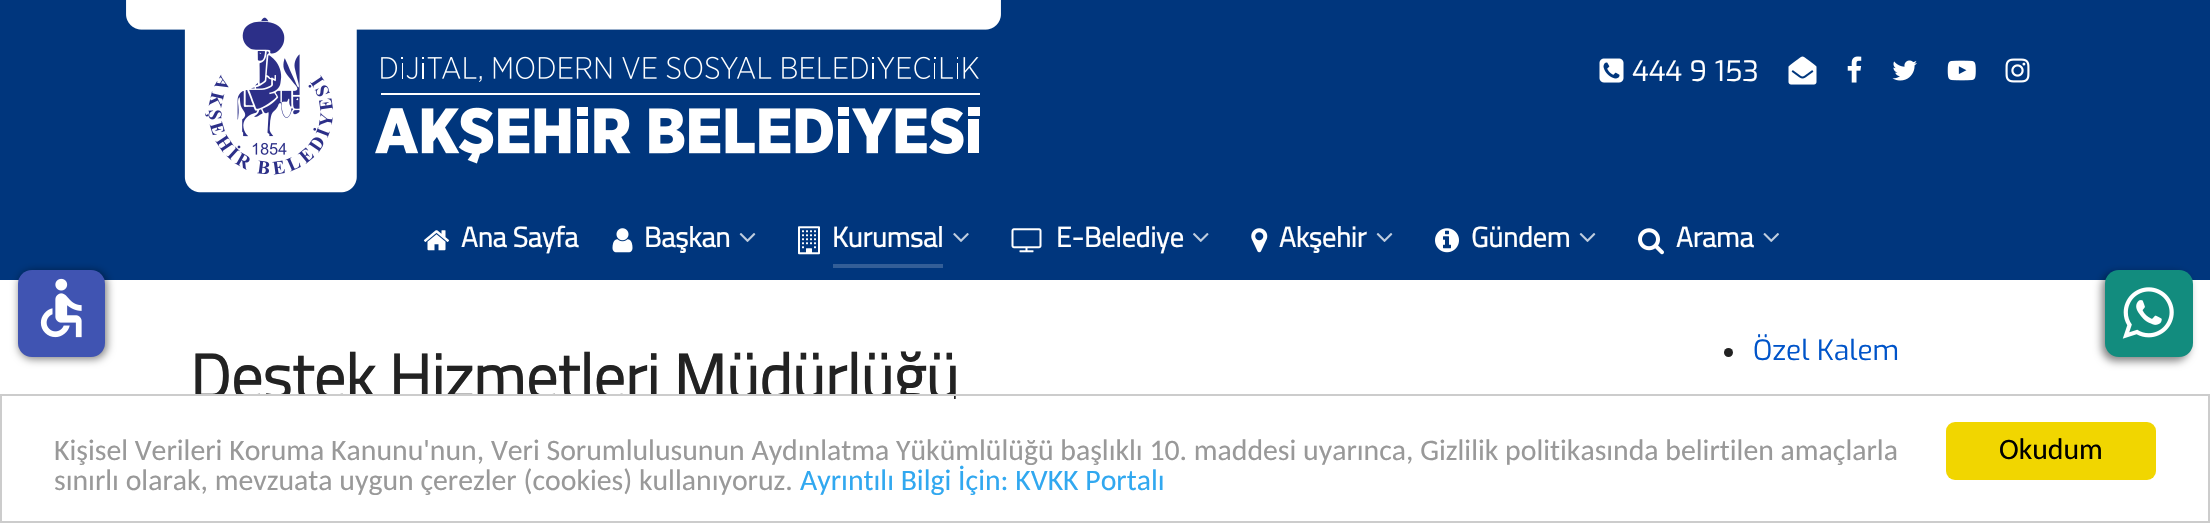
#include "include/core/SkBlurTypes.h"
#include "include/core/SkCanvas.h"
#include "include/core/SkData.h"
#include "include/core/SkFont.h"
#include "include/core/SkFontMgr.h"
#include "include/core/SkImage.h"
#include "include/core/SkMaskFilter.h"
#include "include/core/SkPaint.h"
#include "include/core/SkPathBuilder.h"
#include "include/core/SkTextBlob.h"
#include "include/effects/SkDashPathEffect.h"
#include "include/effects/SkGradientShader.h"
#include "include/utils/SkParsePath.h"

extern sk_sp<SkFontMgr> fontMgr;

static SkFont font(const char* family, int weight, float size, bool italic = false) {
    SkFontStyle style(weight, SkFontStyle::kNormal_Width,
        italic ? SkFontStyle::kItalic_Slant : SkFontStyle::kUpright_Slant);
    SkFont result(fontMgr->matchFamilyStyle(family, style), size);
    result.setSubpixel(true);
    return result;
}

static void drawLabel(SkCanvas* canvas, const char* s, float x, float y, const SkFont& font, SkColor color) {
    SkPaint ink(SkColor4f::FromColor(color));
    ink.setAntiAlias(true);
    canvas->drawString(s, x, y, font, ink);
}

static void fillRect(SkCanvas* canvas, float x, float y, float w, float h, SkColor color) {
    SkPaint ink(SkColor4f::FromColor(color));
    ink.setAntiAlias(true);
    canvas->drawRect(SkRect::MakeXYWH(x, y, w, h), ink);
}

static void fillRRect(SkCanvas* canvas, float x, float y, float w, float h, float radius, SkColor color) {
    SkPaint ink(SkColor4f::FromColor(color));
    ink.setAntiAlias(true);
    canvas->drawRoundRect(SkRect::MakeXYWH(x, y, w, h), radius, radius, ink);
}

static void drawPhoto(SkCanvas* canvas, const char* path, float x, float y, float w, float h) {
    auto image = SkImages::DeferredFromEncodedData(SkData::MakeFromFileName(path));
    canvas->drawImageRect(image, SkRect::MakeXYWH(x, y, w, h), SkSamplingOptions());
}

void draw(SkCanvas* canvas) {
    SkPaint paint;
    paint.setAntiAlias(true);
    canvas->clear(0xFFFFFFFF);
    fillRect(canvas, 0, 0, 2210, 280, 0xFF00367D);
    paint.setColor(0x80000000);
    paint.setMaskFilter(SkMaskFilter::MakeBlur(kNormal_SkBlurStyle, 4.5f));
    canvas->drawRoundRect(SkRect::MakeXYWH(19, 271, 88, 88), 14, 14, paint);
    paint.setMaskFilter(nullptr);
    fillRRect(canvas, 18, 270, 87, 87, 14, 0xFF4054B2);
    drawPhoto(canvas, "assets/img1.png", 40, 278, 42, 60);
    drawPhoto(canvas, "assets/img2.png", 126, 0, 875, 193);
    drawPhoto(canvas, "assets/img3.png", 1599, 58, 25, 25);
    SkFont font1 = font("Exo", 400, 28);
    drawLabel(canvas, "444 9 153", 1632, 81, font1, 0xFFFFFFFF);
    drawPhoto(canvas, "assets/img4.png", 1788, 56, 29, 29);
    drawPhoto(canvas, "assets/img5.png", 1847, 56, 15, 27);
    drawPhoto(canvas, "assets/img6.png", 1892, 60, 25, 21);
    drawPhoto(canvas, "assets/img7.png", 1947, 60, 29, 21);
    drawPhoto(canvas, "assets/img8.png", 2005, 58, 25, 25);
    drawPhoto(canvas, "assets/img9.png", 423, 230, 27, 21);
    SkFont font2 = font("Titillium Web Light", 700, 28);
    drawLabel(canvas, "Ana Sayfa", 461, 247, font2, 0xFFFFFFFF);
    drawPhoto(canvas, "assets/img10.png", 612, 228, 21, 25);
    drawLabel(canvas, "Başkan", 644, 247, font2, 0xFFFFFFFF);
    drawPhoto(canvas, "assets/img11.png", 739, 233, 17, 9);
    drawPhoto(canvas, "assets/img12.png", 798, 226, 22, 29);
    fillRect(canvas, 833, 264, 110, 4, 0xFF335E97);
    drawLabel(canvas, "Kurumsal", 832, 247, font2, 0xFFFFFFFF);
    drawPhoto(canvas, "assets/img13.png", 953, 233, 16, 9);
    drawPhoto(canvas, "assets/img14.png", 1011, 228, 31, 25);
    drawLabel(canvas, "E-Belediye", 1056, 247, font2, 0xFFFFFFFF);
    drawPhoto(canvas, "assets/img15.png", 1193, 233, 16, 9);
    drawPhoto(canvas, "assets/img16.png", 1251, 228, 17, 25);
    drawLabel(canvas, "Akşehir", 1279, 247, font2, 0xFFFFFFFF);
    drawPhoto(canvas, "assets/img11.png", 1376, 233, 17, 9);
    drawPhoto(canvas, "assets/img17.png", 1435, 228, 24, 25);
    drawLabel(canvas, "Gündem", 1471, 247, font2, 0xFFFFFFFF);
    drawPhoto(canvas, "assets/img11.png", 1579, 233, 17, 9);
    drawPhoto(canvas, "assets/img18.png", 1638, 228, 26, 27);
    drawLabel(canvas, "Arama", 1676, 247, font2, 0xFFFFFFFF);
    drawPhoto(canvas, "assets/img19.png", 1763, 233, 16, 9);
    paint.setColor(0xFF222222);
    canvas->drawCircle(1728.5f, 352.5f, 4.5f, paint);
    drawLabel(canvas, "Özel Kalem", 1753, 360, font1, 0xFF0054C9);
    SkFont font3 = font("Titillium Web Light", 700, 63);
    drawLabel(canvas, "Destek Hizmetleri Müdürlüğü", 190, 399, font3, 0xFF222222);
    paint.setColor(0x80000000);
    paint.setMaskFilter(SkMaskFilter::MakeBlur(kNormal_SkBlurStyle, 4.5f));
    canvas->drawRoundRect(SkRect::MakeXYWH(2102, 273, 87, 88), 14, 14, paint);
    paint.setMaskFilter(nullptr);
    fillRRect(canvas, 2105, 270, 88, 87, 14, 0xFF128C7E);
    drawPhoto(canvas, "assets/img20.png", 2122, 287, 52, 52);
    fillRect(canvas, 195, 396, 759, 18, 0xFFFFFFFF);
    paint.setStroke(true);
    paint.setStrokeWidth(2);
    paint.setColor(0xFFCCCCCC);
    canvas->drawRect(SkRect::MakeXYWH(1, 395, 2208, 127), paint);
    SkFont font4 = font("Carlito", 400, 29.75f);
    drawLabel(canvas, "Kişisel Verileri Koruma Kanunu'nun, Veri Sorumlulusunun Aydınlatma Yükümlülüğü başlıklı 10. maddesi uyarınca, Gizlilik politikasında belirtilen amaçlarla", 54, 460, font4, 0xFF999999);
    drawLabel(canvas, "sınırlı olarak, mevzuata uygun çerezler (cookies) kullanıyoruz.", 54, 490, font4, 0xFF999999);
    drawLabel(canvas, "Ayrıntılı Bilgi İçin: KVKK Portalı", 800, 490, font4, 0xFF31A8F0);
    fillRRect(canvas, 1946, 422, 210, 58, 9, 0xFFF1D600);
    drawLabel(canvas, "Okudum", 1999, 459, font4, 0xFF000000);
}
